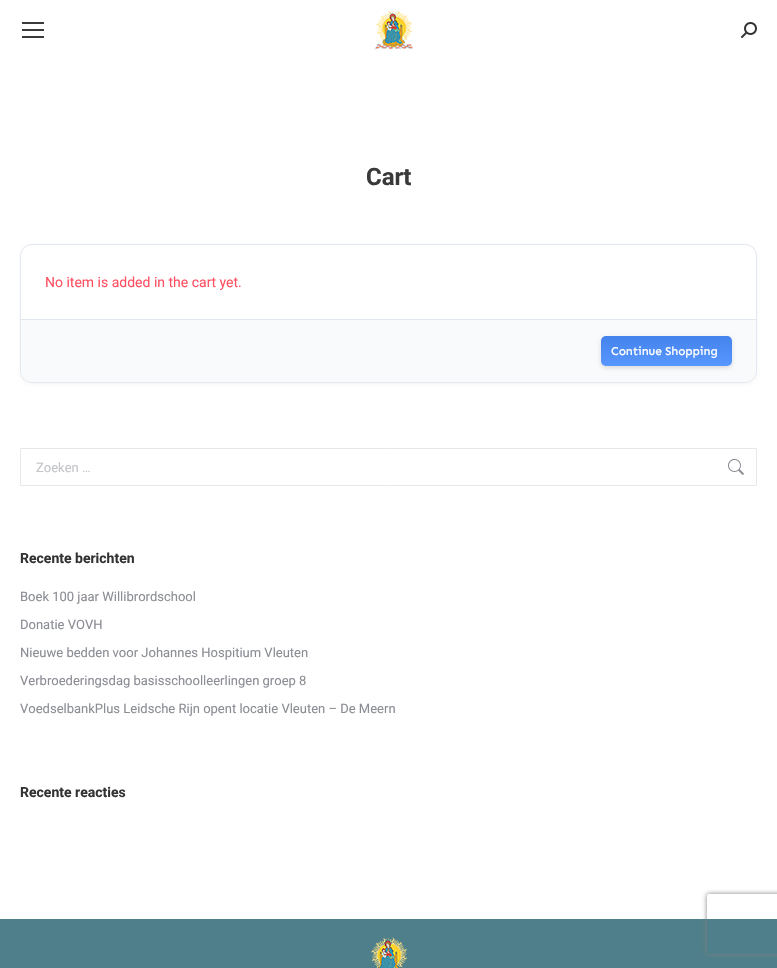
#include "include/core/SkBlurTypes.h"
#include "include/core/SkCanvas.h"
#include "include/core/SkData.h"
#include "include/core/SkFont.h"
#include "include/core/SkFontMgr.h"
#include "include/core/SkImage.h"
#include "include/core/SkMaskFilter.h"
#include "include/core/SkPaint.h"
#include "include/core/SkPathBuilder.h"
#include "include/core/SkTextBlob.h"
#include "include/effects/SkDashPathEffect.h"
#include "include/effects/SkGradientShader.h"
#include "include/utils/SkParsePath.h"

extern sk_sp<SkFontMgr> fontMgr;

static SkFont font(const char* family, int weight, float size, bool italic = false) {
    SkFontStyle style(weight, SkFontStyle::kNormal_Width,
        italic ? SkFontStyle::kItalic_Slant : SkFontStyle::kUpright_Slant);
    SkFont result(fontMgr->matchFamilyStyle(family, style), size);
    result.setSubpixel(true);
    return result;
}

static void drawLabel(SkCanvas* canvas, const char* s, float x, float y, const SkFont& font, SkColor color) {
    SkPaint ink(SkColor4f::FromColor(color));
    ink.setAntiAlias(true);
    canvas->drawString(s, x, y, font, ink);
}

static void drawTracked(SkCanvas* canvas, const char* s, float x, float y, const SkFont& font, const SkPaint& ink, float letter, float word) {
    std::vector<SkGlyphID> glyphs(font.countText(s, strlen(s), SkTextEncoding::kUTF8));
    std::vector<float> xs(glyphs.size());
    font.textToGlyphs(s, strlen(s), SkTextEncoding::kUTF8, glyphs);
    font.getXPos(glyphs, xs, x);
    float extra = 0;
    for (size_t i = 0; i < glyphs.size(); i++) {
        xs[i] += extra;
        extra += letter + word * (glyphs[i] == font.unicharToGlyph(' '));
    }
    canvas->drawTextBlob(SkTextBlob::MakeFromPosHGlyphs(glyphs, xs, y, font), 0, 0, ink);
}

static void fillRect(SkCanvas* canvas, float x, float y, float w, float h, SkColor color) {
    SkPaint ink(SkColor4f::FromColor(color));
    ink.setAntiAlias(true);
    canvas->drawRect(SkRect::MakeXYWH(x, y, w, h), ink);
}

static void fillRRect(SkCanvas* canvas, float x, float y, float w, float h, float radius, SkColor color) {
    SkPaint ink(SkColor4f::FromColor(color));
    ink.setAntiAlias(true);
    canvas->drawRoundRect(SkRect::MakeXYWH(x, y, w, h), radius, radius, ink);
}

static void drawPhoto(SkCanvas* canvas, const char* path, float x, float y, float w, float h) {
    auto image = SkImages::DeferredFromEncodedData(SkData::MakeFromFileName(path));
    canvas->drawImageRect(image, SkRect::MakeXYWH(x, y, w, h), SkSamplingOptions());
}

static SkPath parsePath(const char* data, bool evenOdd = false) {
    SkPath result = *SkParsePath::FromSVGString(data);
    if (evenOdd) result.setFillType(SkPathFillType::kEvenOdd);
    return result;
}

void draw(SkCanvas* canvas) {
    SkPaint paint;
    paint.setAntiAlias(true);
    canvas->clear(0xFFFFFFFF);
    fillRect(canvas, 22, 22, 22, 2, 0xFF3A3A3A);
    fillRect(canvas, 22, 29, 22, 2, 0xFF3A3A3A);
    fillRect(canvas, 22, 36, 22, 2, 0xFF3A3A3A);
    drawPhoto(canvas, "assets/img1.png", 374, 10, 39, 40);
    drawPhoto(canvas, "assets/img2.png", 741, 22, 16, 16);
    SkFont font1 = font("Roboto", 700, 24);
    drawLabel(canvas, "Cart", 366, 185, font1, 0xFF3A3A3A);
    paint.setColor(0x0A000000);
    paint.setMaskFilter(SkMaskFilter::MakeBlur(kNormal_SkBlurStyle, 1.5f));
    canvas->drawRoundRect(SkRect::MakeXYWH(20, 245, 737, 139), 12, 12, paint);
    paint.setMaskFilter(nullptr);
    paint.setColor(0xFFFFFFFF);
    canvas->drawRoundRect(SkRect::MakeXYWH(20.5f, 244.5f, 736, 138), 11.5f, 11.5f, paint);
    paint.setStroke(true);
    paint.setStrokeWidth(1);
    paint.setColor(0xFFE2E8F0);
    canvas->drawRoundRect(SkRect::MakeXYWH(20.5f, 244.5f, 736, 138), 11.5f, 11.5f, paint);
    SkFont font2 = font("Roboto", 400, 14);
    drawLabel(canvas, "No item is added in the cart yet.", 45, 287, font2, 0xFFFF5062);
    paint.setStroke(false);
    paint.setColor(0xFFF8FAFC);
    canvas->drawPath(parsePath("M21 319H756V371C756 377 751 382 745 382H32C26 382 21 377 21 371Z"), paint);
    fillRect(canvas, 21, 319, 735, 1, 0xFFE2E8F0);
    paint.setColor(0x1F000000);
    paint.setMaskFilter(SkMaskFilter::MakeBlur(kNormal_SkBlurStyle, 2));
    canvas->drawRoundRect(SkRect::MakeXYWH(601, 338, 131, 30), 5, 5, paint);
    paint.setMaskFilter(nullptr);
    fillRRect(canvas, 601, 336, 131, 30, 5, 0xFF4A8EFF);
    {
        const SkColor colors[] = {0x14000000, 0x14FFFFFF};
        const float stops[] = {0, 1};
        const SkPoint ends[] = {{667, 336}, {667, 366}};
        paint.setShader(SkGradientShader::MakeLinear(ends, colors, stops, 2, SkTileMode::kClamp));
        paint.setAlpha(255);
    }
    canvas->drawRoundRect(SkRect::MakeXYWH(601, 336, 131, 30), 5, 5, paint);
    SkFont font3 = font("Sen", 500, 12);
    paint.setShader(nullptr);
    paint.setColor(0xFFFFFFFF);
    drawTracked(canvas, "Continue Shopping", 611, 355, font3, paint, -0.1f, 0);
    paint.setStroke(true);
    paint.setColor(0xFFE7E7E7);
    canvas->drawRoundRect(SkRect::MakeXYWH(20.5f, 448.5f, 736, 37), 0.5f, 0.5f, paint);
    SkFont font4 = font("Roboto", 400, 13);
    drawLabel(canvas, "Zoeken …", 36, 472, font4, 0xFFC4C5C9);
    drawPhoto(canvas, "assets/img3.png", 728, 459, 16, 16);
    SkFont font5 = font("Roboto", 700, 14);
    drawLabel(canvas, "Recente berichten", 20, 563, font5, 0xFF333333);
    drawLabel(canvas, "Boek 100 jaar Willibrordschool", 20, 601, font4, 0xFF8B8D94);
    drawLabel(canvas, "Donatie VOVH", 20, 629, font4, 0xFF8B8D94);
    drawLabel(canvas, "Nieuwe bedden voor Johannes Hospitium Vleuten", 20, 657, font4, 0xFF8B8D94);
    drawLabel(canvas, "Verbroederingsdag basisschoolleerlingen groep 8", 20, 685, font4, 0xFF8B8D94);
    drawLabel(canvas, "VoedselbankPlus Leidsche Rijn opent locatie Vleuten – De Meern", 20, 713, font4, 0xFF8B8D94);
    drawLabel(canvas, "Recente reacties", 20, 797, font5, 0xFF333333);
    fillRect(canvas, 0, 919, 777, 49, 0xFF4F7F8A);
    drawPhoto(canvas, "assets/img4.png", 371, 937, 37, 31);
    canvas->save();
    canvas->clipPath(parsePath("M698 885H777V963H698ZM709 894H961C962 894 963 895 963 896V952C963 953 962 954 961 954H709C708 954 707 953 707 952V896C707 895 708 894 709 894Z", true), true);
    paint.setStroke(false);
    paint.setColor(0xFF808080);
    paint.setMaskFilter(SkMaskFilter::MakeBlur(kNormal_SkBlurStyle, 2.5f));
    canvas->drawRoundRect(SkRect::MakeXYWH(707, 894, 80, 60), 2, 2, paint);
    paint.setMaskFilter(nullptr);
    canvas->restore();
}
